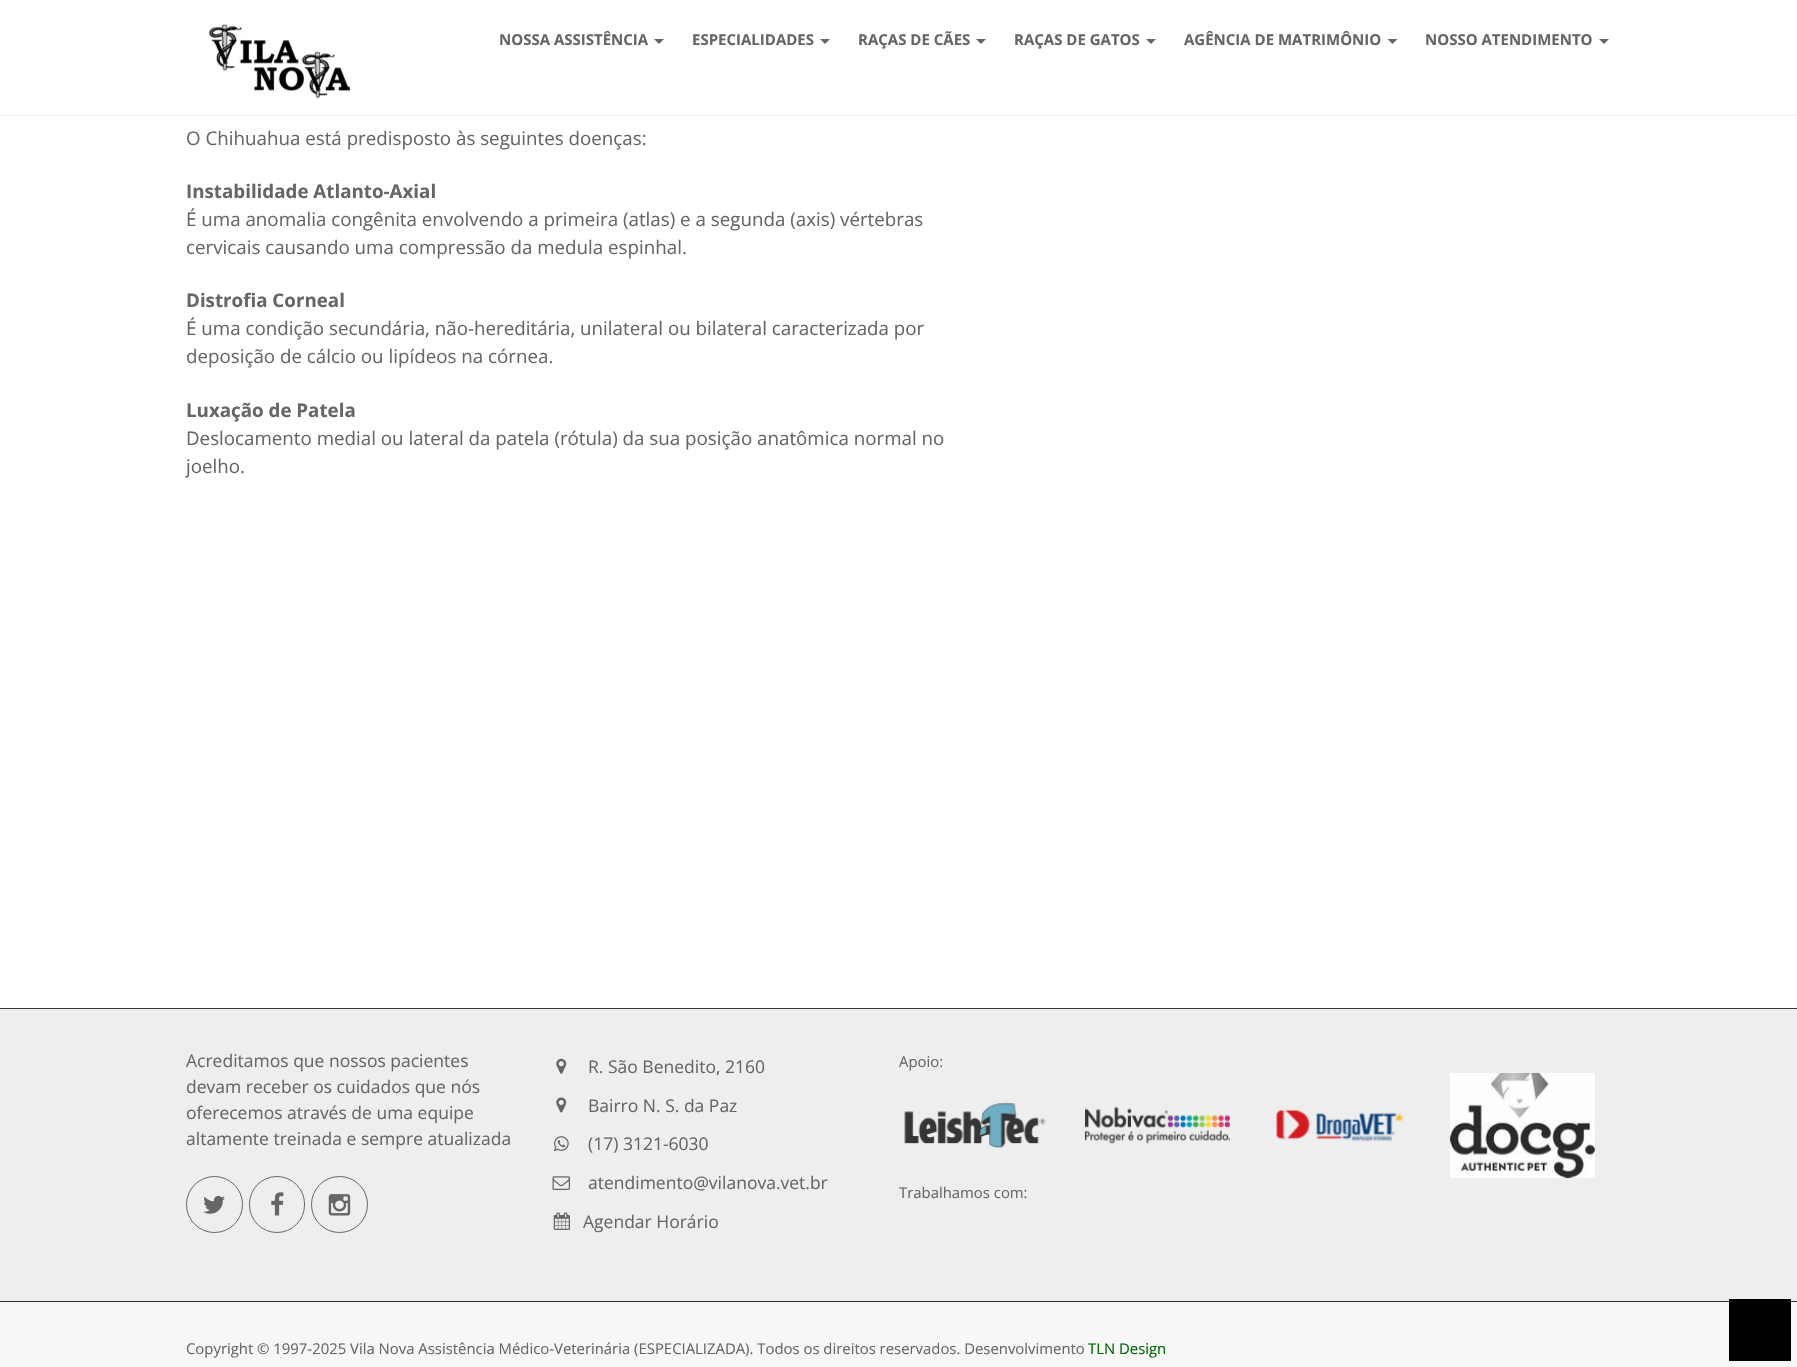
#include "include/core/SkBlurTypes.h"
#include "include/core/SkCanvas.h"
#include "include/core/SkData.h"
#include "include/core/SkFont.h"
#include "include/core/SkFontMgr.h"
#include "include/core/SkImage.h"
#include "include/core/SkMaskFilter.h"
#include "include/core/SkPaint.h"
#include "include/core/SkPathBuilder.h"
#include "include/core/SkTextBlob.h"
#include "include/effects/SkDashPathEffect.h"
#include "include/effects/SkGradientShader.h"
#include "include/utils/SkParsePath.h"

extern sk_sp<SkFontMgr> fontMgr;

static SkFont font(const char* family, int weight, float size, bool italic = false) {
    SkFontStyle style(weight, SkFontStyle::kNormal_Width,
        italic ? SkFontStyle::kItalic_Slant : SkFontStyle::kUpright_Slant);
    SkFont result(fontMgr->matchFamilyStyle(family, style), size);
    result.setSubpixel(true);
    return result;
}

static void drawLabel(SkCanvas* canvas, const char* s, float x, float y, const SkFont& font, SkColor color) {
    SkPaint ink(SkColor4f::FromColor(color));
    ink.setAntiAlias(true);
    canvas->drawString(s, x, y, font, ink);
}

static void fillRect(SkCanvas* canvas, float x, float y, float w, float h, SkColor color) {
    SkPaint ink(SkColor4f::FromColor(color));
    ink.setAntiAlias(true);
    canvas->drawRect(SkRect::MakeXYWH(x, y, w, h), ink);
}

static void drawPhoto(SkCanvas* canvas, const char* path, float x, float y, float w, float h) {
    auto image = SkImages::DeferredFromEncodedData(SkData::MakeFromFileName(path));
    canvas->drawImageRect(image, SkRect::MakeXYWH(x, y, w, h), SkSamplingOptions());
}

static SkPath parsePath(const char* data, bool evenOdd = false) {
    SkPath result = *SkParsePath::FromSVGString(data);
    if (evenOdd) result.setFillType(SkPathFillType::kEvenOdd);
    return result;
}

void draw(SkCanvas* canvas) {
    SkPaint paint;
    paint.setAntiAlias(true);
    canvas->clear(0xFFFFFFFF);
    fillRect(canvas, 0, 115, 1797, 1, 0xFFF1F1F1);
    drawPhoto(canvas, "assets/img1.png", 208, 24, 143, 75);
    SkFont font1 = font("Open Sans", 700, 15);
    drawLabel(canvas, "NOSSA ASSISTÊNCIA", 499, 45, font1, 0xFF666666);
    paint.setColor(0xFF666666);
    canvas->drawPath(parsePath("M654 39H664L659 44Z"), paint);
    drawLabel(canvas, "ESPECIALIDADES", 692, 45, font1, 0xFF666666);
    canvas->drawPath(parsePath("M820 39H830L825 44Z"), paint);
    drawLabel(canvas, "RAÇAS DE CÃES", 858, 45, font1, 0xFF666666);
    canvas->drawPath(parsePath("M976 39H986L981 44Z"), paint);
    drawLabel(canvas, "RAÇAS DE GATOS", 1014, 45, font1, 0xFF666666);
    canvas->drawPath(parsePath("M1146 39H1156L1151 44Z"), paint);
    drawLabel(canvas, "AGÊNCIA DE MATRIMÔNIO", 1184, 45, font1, 0xFF666666);
    canvas->drawPath(parsePath("M1387.5 39H1397.5L1392.5 44Z"), paint);
    drawLabel(canvas, "NOSSO ATENDIMENTO", 1425, 45, font1, 0xFF666666);
    canvas->drawPath(parsePath("M1599 39H1609L1604 44Z"), paint);
    SkFont font2 = font("Open Sans", 400, 18.75f);
    drawLabel(canvas, "O Chihuahua está predisposto às seguintes doenças:", 186, 145, font2, 0xFF666666);
    SkFont font3 = font("Open Sans", 700, 18.75f);
    drawLabel(canvas, "Instabilidade Atlanto-Axial", 186, 198, font3, 0xFF666666);
    drawLabel(canvas, "É uma anomalia congênita envolvendo a primeira (atlas) e a segunda (axis) vértebras", 186, 226, font2, 0xFF666666);
    drawLabel(canvas, "cervicais causando uma compressão da medula espinhal.", 186, 254, font2, 0xFF666666);
    drawLabel(canvas, "Distrofia Corneal", 186, 307, font3, 0xFF666666);
    drawLabel(canvas, "É uma condição secundária, não-hereditária, unilateral ou bilateral caracterizada por", 186, 335, font2, 0xFF666666);
    drawLabel(canvas, "deposição de cálcio ou lipídeos na córnea.", 186, 363, font2, 0xFF666666);
    drawLabel(canvas, "Luxação de Patela", 186, 417, font3, 0xFF666666);
    drawLabel(canvas, "Deslocamento medial ou lateral da patela (rótula) da sua posição anatômica normal no", 186, 445, font2, 0xFF666666);
    drawLabel(canvas, "joelho.", 186, 473, font2, 0xFF666666);
    fillRect(canvas, 0, 1009, 1797, 294, 0xFFEEEEEE);
    fillRect(canvas, 0, 1008, 1797, 1, 0xFF3A3A3A);
    fillRect(canvas, 0, 1301, 1797, 1, 0xFF333333);
    SkFont font4 = font("Open Sans", 400, 17.5f);
    drawLabel(canvas, "Acreditamos que nossos pacientes", 186, 1067, font4, 0xFF666666);
    drawLabel(canvas, "devam receber os cuidados que nós", 186, 1093, font4, 0xFF666666);
    drawLabel(canvas, "oferecemos através de uma equipe", 186, 1119, font4, 0xFF666666);
    drawLabel(canvas, "altamente treinada e sempre atualizada", 186, 1145, font4, 0xFF666666);
    paint.setStroke(true);
    paint.setStrokeWidth(1);
    canvas->drawCircle(214.5f, 1204.5f, 28, paint);
    drawPhoto(canvas, "assets/img2.png", 203, 1195, 22, 19);
    canvas->drawRoundRect(SkRect::MakeXYWH(249.5f, 1176.5f, 55, 56), 27.5f, 27.5f, paint);
    drawPhoto(canvas, "assets/img3.png", 271, 1192, 13, 24);
    canvas->drawCircle(339.5f, 1204.5f, 28, paint);
    drawPhoto(canvas, "assets/img4.png", 328, 1194, 23, 22);
    drawPhoto(canvas, "assets/img5.png", 556, 1058, 11, 16);
    drawLabel(canvas, "R. São Benedito, 2160", 588, 1073, font4, 0xFF666666);
    drawPhoto(canvas, "assets/img6.png", 556, 1097, 11, 16);
    drawLabel(canvas, "Bairro N. S. da Paz", 588, 1112, font4, 0xFF666666);
    drawPhoto(canvas, "assets/img7.png", 553, 1136, 16, 16);
    drawLabel(canvas, "(17) 3121-6030", 588, 1150, font4, 0xFF666666);
    drawPhoto(canvas, "assets/img8.png", 552, 1176, 18, 14);
    drawLabel(canvas, "atendimento@vilanova.vet.br", 588, 1189, font4, 0xFF666666);
    drawPhoto(canvas, "assets/img9.png", 553, 1212, 17, 18);
    drawLabel(canvas, "Agendar Horário", 583, 1228, font4, 0xFF666666);
    SkFont font5 = font("Open Sans", 400, 14.88f);
    drawLabel(canvas, "Apoio:", 899, 1067, font5, 0xFF666666);
    drawPhoto(canvas, "assets/img10.png", 904, 1102, 142, 47);
    drawPhoto(canvas, "assets/img11.png", 1085, 1106, 145, 38);
    drawPhoto(canvas, "assets/img12.png", 1276, 1109, 128, 33);
    drawPhoto(canvas, "assets/img13.png", 1450, 1073, 145, 105);
    drawLabel(canvas, "Trabalhamos com:", 899, 1198, font5, 0xFF666666);
    fillRect(canvas, 0, 1303, 1797, 64, 0xFFF7F7F7);
    drawLabel(canvas, "Copyright © 1997-2025 Vila Nova Assistência Médico-Veterinária (ESPECIALIZADA). Todos os direitos reservados. Desenvolvimento", 186, 1354, font5, 0xFF666666);
    drawLabel(canvas, "TLN Design", 1088, 1354, font5, 0xFF006600);
    fillRect(canvas, 1729, 1299, 62, 62, 0xFF000000);
}
